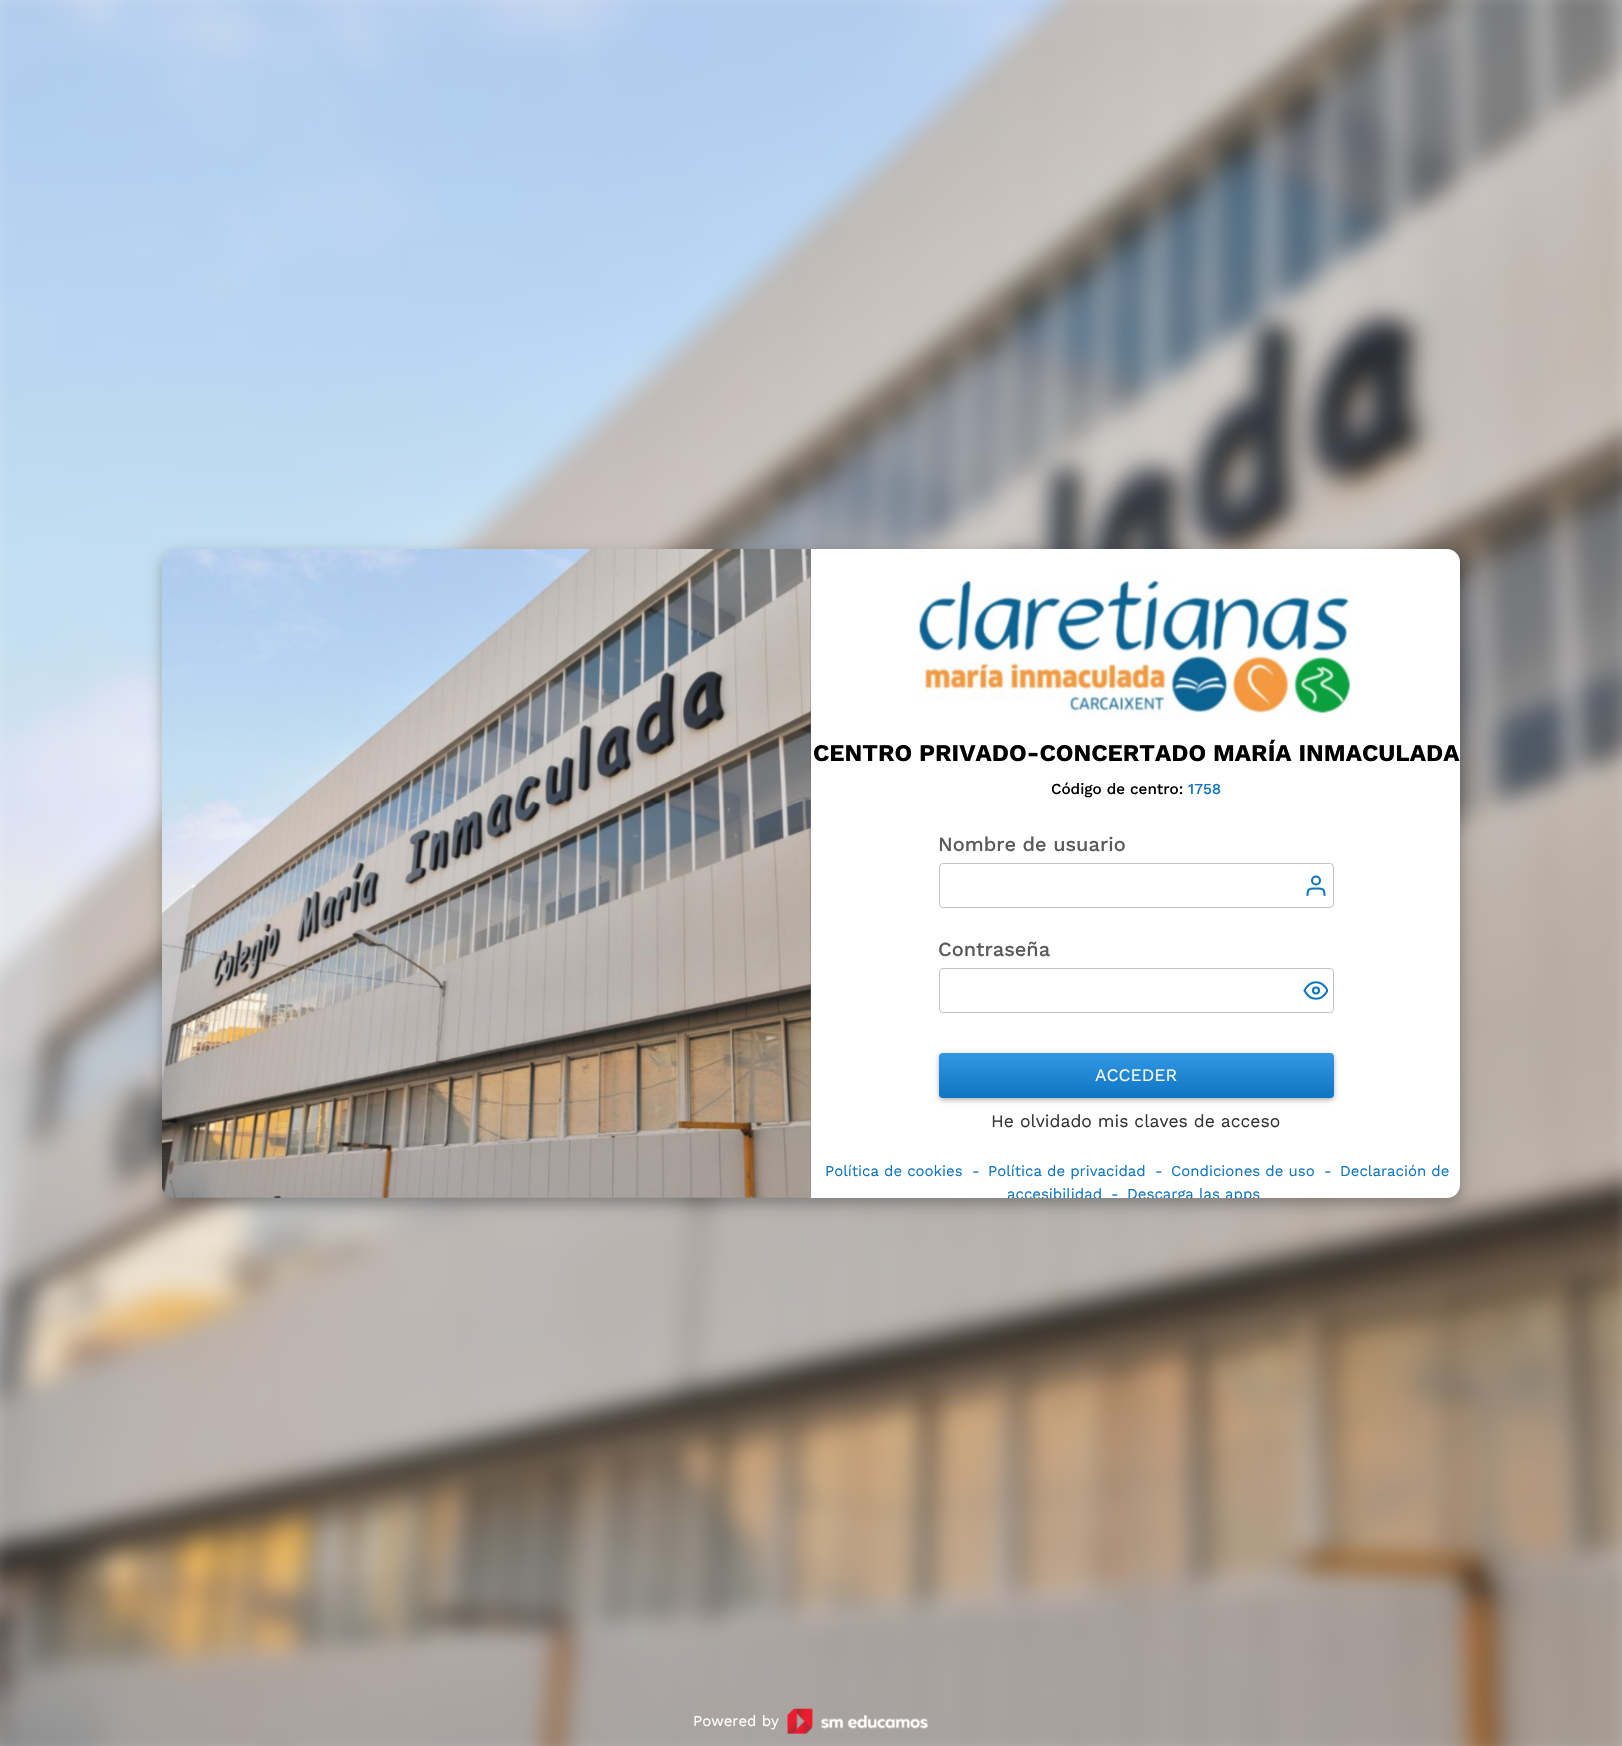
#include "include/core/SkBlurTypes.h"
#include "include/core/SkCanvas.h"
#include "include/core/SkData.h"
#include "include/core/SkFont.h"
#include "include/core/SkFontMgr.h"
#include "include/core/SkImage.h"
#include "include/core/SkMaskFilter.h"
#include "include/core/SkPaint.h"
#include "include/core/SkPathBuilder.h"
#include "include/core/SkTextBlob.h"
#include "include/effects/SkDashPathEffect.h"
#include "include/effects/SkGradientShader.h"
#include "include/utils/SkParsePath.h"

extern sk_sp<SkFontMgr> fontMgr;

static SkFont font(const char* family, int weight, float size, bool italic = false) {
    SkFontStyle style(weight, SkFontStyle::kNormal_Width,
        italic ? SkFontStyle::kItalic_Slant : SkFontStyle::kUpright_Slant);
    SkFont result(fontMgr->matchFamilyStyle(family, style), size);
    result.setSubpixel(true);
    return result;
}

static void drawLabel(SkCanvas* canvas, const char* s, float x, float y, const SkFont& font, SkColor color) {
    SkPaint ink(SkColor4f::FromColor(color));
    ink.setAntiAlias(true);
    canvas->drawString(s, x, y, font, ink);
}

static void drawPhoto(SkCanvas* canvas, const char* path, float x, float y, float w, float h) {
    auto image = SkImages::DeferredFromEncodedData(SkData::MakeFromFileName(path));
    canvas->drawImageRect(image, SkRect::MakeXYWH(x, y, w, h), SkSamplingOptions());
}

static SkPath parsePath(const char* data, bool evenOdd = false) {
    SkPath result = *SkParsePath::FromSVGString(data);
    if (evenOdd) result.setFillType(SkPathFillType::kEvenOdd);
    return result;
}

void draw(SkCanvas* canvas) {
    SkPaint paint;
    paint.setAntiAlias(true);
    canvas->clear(0xFFFFFFFF);
    drawPhoto(canvas, "assets/img1.png", 0, 0, 1622, 1746);
    paint.setColor(0x4D000000);
    paint.setMaskFilter(SkMaskFilter::MakeBlur(kNormal_SkBlurStyle, 7.5f));
    canvas->drawRoundRect(SkRect::MakeXYWH(163, 555, 1297, 649), 13, 13, paint);
    paint.setMaskFilter(nullptr);
    drawPhoto(canvas, "assets/img2.png", 162, 549, 649, 649);
    paint.setColor(0xFFFFFFFF);
    canvas->drawPath(parsePath("M811 549H1447C1454 549 1460 555 1460 562V1185C1460 1192 1454 1198 1447 1198H811Z"), paint);
    drawPhoto(canvas, "assets/img3.png", 917, 574, 434, 140);
    SkFont font1 = font("Work Sans", 700, 24);
    drawLabel(canvas, "CENTRO PRIVADO-CONCERTADO MARÍA INMACULADA", 813, 761, font1, 0xFF000000);
    SkFont font2 = font("Work Sans", 500, 15.25f);
    drawLabel(canvas, "Código de centro:", 1051, 794, font2, 0xFF000000);
    drawLabel(canvas, "1758", 1188, 794, font2, 0xFF0F75C3);
    SkFont font3 = font("Work Sans", 500, 20);
    drawLabel(canvas, "Nombre de usuario", 938, 851, font3, 0xFF5A5A5A);
    paint.setStroke(true);
    paint.setStrokeWidth(1);
    paint.setColor(0xFFC4C4C4);
    canvas->drawRoundRect(SkRect::MakeXYWH(939.5f, 863.5f, 394, 44), 3.5f, 3.5f, paint);
    paint.setStrokeWidth(2.1f);
    paint.setStrokeCap(SkPaint::kRound_Cap);
    paint.setStrokeJoin(SkPaint::kRound_Join);
    paint.setColor(0xFF0F75C3);
    canvas->drawPath(parsePath("M1324.5 895C1324.5 888 1322 888.5 1316 888.5C1310 888.5 1307.5 888 1307.5 895"), paint);
    paint.setStrokeCap(SkPaint::kButt_Cap);
    paint.setStrokeJoin(SkPaint::kMiter_Join);
    canvas->drawCircle(1316, 880.5f, 4, paint);
    drawLabel(canvas, "Contraseña", 938, 956, font3, 0xFF5A5A5A);
    paint.setStrokeWidth(1);
    paint.setColor(0xFFC4C4C4);
    canvas->drawRoundRect(SkRect::MakeXYWH(939.5f, 968.5f, 394, 44), 3.5f, 3.5f, paint);
    canvas->save();
    canvas->clipRect(SkRect::MakeXYWH(1303, 978, 25, 25));
    paint.setStrokeWidth(2.1f);
    paint.setStrokeCap(SkPaint::kRound_Cap);
    paint.setStrokeJoin(SkPaint::kRound_Join);
    paint.setColor(0xFF0F75C3);
    canvas->drawPath(parsePath("M1304.5 990.5C1310 979.5 1322 979.5 1327.5 990.5C1322 1001.5 1310 1001.5 1304.5 990.5Z"), paint);
    canvas->restore();
    paint.setStrokeCap(SkPaint::kButt_Cap);
    paint.setStrokeJoin(SkPaint::kMiter_Join);
    canvas->drawCircle(1316, 990.5f, 3, paint);
    paint.setStroke(false);
    paint.setColor(0x4D000000);
    paint.setMaskFilter(SkMaskFilter::MakeBlur(kNormal_SkBlurStyle, 2.5f));
    canvas->drawRoundRect(SkRect::MakeXYWH(939, 1055, 395, 45), 4, 4, paint);
    paint.setMaskFilter(nullptr);
    {
        const SkColor colors[] = {0xFF0F75C3, 0xFF3297E5};
        const float stops[] = {0, 1};
        const SkPoint ends[] = {{1136, 1098}, {1136, 1053}};
        paint.setShader(SkGradientShader::MakeLinear(ends, colors, stops, 2, SkTileMode::kClamp));
        paint.setAlpha(255);
    }
    canvas->drawRoundRect(SkRect::MakeXYWH(939, 1053, 395, 45), 4, 4, paint);
    SkFont font4 = font("Work Sans", 400, 17.5f);
    drawLabel(canvas, "ACCEDER", 1095, 1081, font4, 0xFFFFFFFF);
    drawLabel(canvas, "He olvidado mis claves de acceso", 991, 1127, font4, 0xFF333333);
    SkFont font5 = font("Work Sans", 400, 15);
    drawLabel(canvas, "Política de cookies", 825, 1176, font5, 0xFF0F75C3);
    drawLabel(canvas, "-", 972, 1176, font5, 0xFF0F75C3);
    drawLabel(canvas, "Política de privacidad", 988, 1176, font5, 0xFF0F75C3);
    drawLabel(canvas, "-", 1155, 1176, font5, 0xFF0F75C3);
    drawLabel(canvas, "Condiciones de uso", 1171, 1176, font5, 0xFF0F75C3);
    drawLabel(canvas, "-", 1324, 1176, font5, 0xFF0F75C3);
    drawLabel(canvas, "Declaración de", 1340, 1176, font5, 0xFF0F75C3);
    canvas->save();
    canvas->clipPath(parsePath("M811 549H1447C1454 549 1460 555 1460 562V1185C1460 1192 1454 1198 1447 1198H811Z"), true);
    drawLabel(canvas, "accesibilidad", 1007, 1199, font5, 0xFF0F75C3);
    canvas->restore();
    drawLabel(canvas, "-", 1111, 1199, font5, 0xFF0F75C3);
    canvas->save();
    canvas->clipPath(parsePath("M811 549H1447C1454 549 1460 555 1460 562V1185C1460 1192 1454 1198 1447 1198H811Z"), true);
    drawLabel(canvas, "Descarga las apps", 1127, 1199, font5, 0xFF0F75C3);
    canvas->restore();
    drawLabel(canvas, "Powered by", 693, 1726, font5, 0xFFFFFFFF);
    drawPhoto(canvas, "assets/img4.png", 787, 1708, 141, 26);
}
